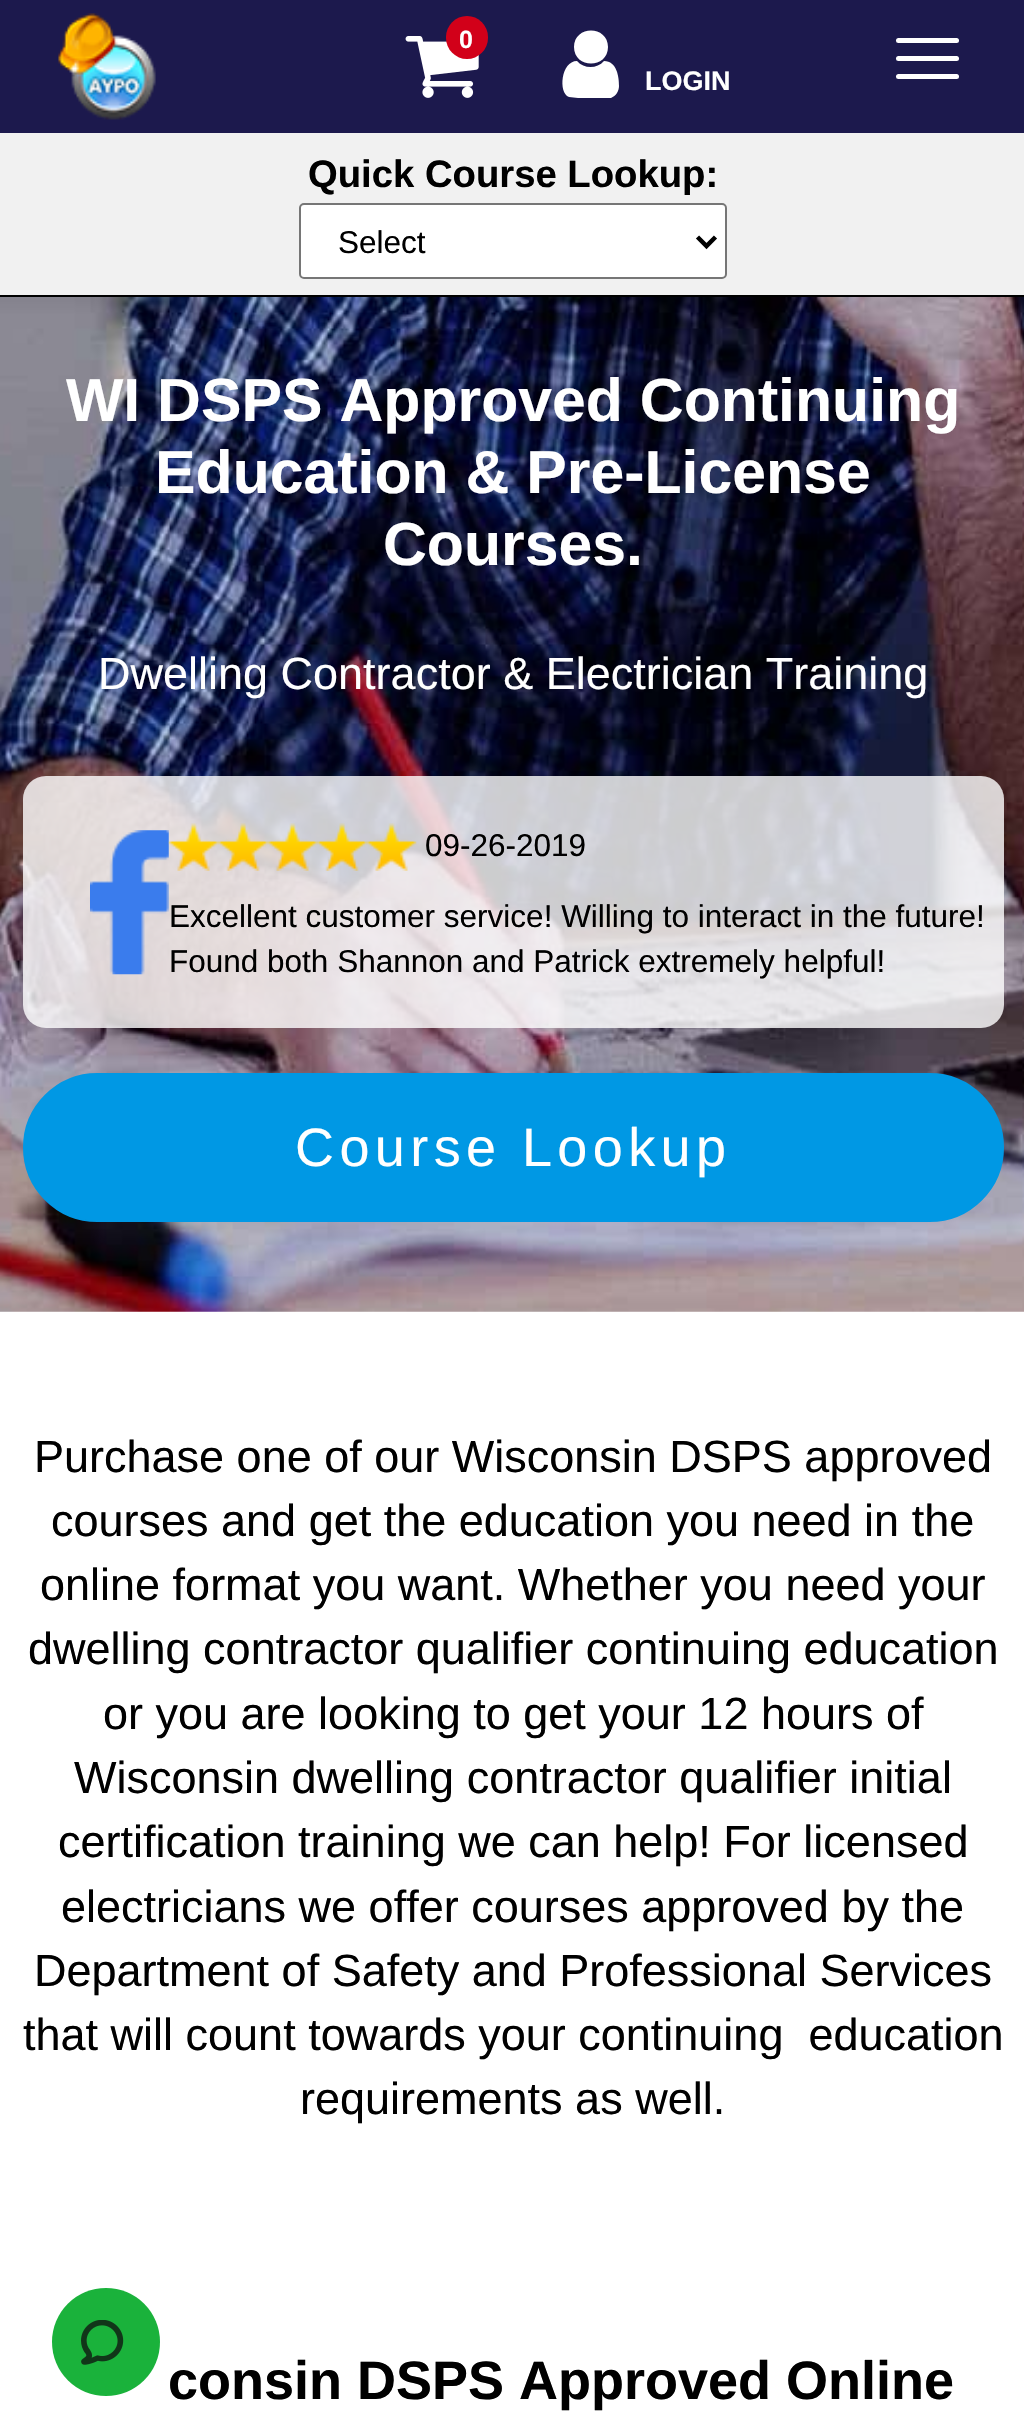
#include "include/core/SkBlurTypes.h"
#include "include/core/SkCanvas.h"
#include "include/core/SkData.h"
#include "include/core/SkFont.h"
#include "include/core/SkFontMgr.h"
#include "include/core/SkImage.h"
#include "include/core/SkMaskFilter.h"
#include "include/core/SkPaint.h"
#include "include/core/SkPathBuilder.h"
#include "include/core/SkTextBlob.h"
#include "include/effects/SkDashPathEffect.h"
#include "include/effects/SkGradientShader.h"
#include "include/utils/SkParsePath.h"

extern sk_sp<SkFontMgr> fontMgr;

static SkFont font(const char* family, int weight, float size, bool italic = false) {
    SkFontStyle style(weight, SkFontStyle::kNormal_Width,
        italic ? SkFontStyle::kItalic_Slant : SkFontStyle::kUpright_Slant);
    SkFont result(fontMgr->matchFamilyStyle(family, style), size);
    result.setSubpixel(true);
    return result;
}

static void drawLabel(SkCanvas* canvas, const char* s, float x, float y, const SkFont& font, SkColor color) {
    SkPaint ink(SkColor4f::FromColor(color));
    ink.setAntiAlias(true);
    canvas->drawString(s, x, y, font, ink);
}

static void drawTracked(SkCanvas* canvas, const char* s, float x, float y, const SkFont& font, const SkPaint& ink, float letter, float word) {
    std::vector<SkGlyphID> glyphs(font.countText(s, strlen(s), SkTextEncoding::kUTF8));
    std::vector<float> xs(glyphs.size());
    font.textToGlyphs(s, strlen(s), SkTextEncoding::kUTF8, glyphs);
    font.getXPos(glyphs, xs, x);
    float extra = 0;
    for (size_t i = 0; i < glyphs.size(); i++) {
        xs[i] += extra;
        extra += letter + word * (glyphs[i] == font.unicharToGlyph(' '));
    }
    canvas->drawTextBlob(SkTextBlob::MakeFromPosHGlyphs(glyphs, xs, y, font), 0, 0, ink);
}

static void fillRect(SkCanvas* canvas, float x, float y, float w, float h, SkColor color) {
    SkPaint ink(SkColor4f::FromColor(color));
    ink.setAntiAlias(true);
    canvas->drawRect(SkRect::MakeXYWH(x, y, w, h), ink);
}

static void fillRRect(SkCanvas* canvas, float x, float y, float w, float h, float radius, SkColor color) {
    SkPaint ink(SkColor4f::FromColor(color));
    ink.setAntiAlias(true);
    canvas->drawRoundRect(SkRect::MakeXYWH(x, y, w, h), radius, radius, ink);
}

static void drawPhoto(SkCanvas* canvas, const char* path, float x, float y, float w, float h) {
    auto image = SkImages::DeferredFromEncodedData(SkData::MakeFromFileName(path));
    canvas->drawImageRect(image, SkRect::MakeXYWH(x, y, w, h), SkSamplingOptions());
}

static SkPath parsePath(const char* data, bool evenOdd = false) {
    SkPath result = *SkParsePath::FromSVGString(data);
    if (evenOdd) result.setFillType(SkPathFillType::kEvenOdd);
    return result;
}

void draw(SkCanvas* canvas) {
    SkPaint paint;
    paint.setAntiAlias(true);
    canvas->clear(0xFFFFFFFF);
    fillRect(canvas, 0, 0, 1024, 133, 0xFF1C194D);
    drawPhoto(canvas, "assets/img1.png", 58, 13, 98, 107);
    drawPhoto(canvas, "assets/img2.png", 405, 36, 74, 62);
    fillRRect(canvas, 446, 16, 42, 43, 21, 0xFFD20019);
    SkFont font1 = font("Liberation Sans", 700, 25);
    drawLabel(canvas, "0", 459, 48, font1, 0xFFFFFFFF);
    SkFont font2 = font("Liberation Sans", 700, 27);
    drawLabel(canvas, "LOGIN", 645, 90, font2, 0xFFFFFFFF);
    paint.setColor(0xFFFFFFFF);
    canvas->drawPath(parsePath("M619 86C619 91 616 96 611 98H578L569 97C558 93 561 61 577 61C584 69 597 69 604 61C617 61 619 77 619 86ZM608 47C608 69 574 69 574 47C574 25 608 25 608 47Z"), paint);
    fillRRect(canvas, 896, 38, 63, 5, 2.5f, 0xFFFFFFFF);
    fillRRect(canvas, 896, 56, 63, 5, 2.5f, 0xFFFFFFFF);
    fillRRect(canvas, 896, 74, 63, 5, 2.5f, 0xFFFFFFFF);
    fillRect(canvas, 0, 133, 1024, 162, 0xFFF1F1F1);
    fillRect(canvas, 0, 295, 1024, 2, 0xFF000000);
    SkFont font3 = font("Liberation Sans", 700, 38.25f);
    drawLabel(canvas, "Quick Course Lookup:", 308, 187, font3, 0xFF000000);
    canvas->drawRoundRect(SkRect::MakeXYWH(300, 204, 426, 74), 4, 4, paint);
    paint.setStroke(true);
    paint.setStrokeWidth(2);
    paint.setColor(0xFF767676);
    canvas->drawRoundRect(SkRect::MakeXYWH(300, 204, 426, 74), 4, 4, paint);
    paint.setStrokeWidth(4.5f);
    paint.setColor(0xFF000000);
    canvas->drawPath(parsePath("M697.5 237L706.5 246L715.5 237"), paint);
    SkFont font4 = font("Liberation Sans", 400, 31.5f);
    drawLabel(canvas, "Select", 338, 253, font4, 0xFF000000);
    drawPhoto(canvas, "assets/img3.png", 0, 297, 1024, 1015);
    SkFont font5 = font("Liberation Sans", 700, 60.75f);
    drawLabel(canvas, "WI DSPS Approved Continuing", 66, 421, font5, 0xFFFFFFFF);
    drawLabel(canvas, "Education & Pre-License", 155, 493, font5, 0xFFFFFFFF);
    drawLabel(canvas, "Courses.", 383, 565, font5, 0xFFFFFFFF);
    SkFont font6 = font("Liberation Sans", 400, 45);
    drawLabel(canvas, "Dwelling Contractor & Electrician Training", 98, 689, font6, 0xFFFFFFFF);
    fillRRect(canvas, 23, 776, 981, 252, 23, 0xCCFFFFFF);
    drawPhoto(canvas, "assets/img4.png", 90, 830, 79, 145);
    drawPhoto(canvas, "assets/img5.png", 168, 823, 51, 48);
    drawPhoto(canvas, "assets/img6.png", 218, 823, 50, 48);
    drawPhoto(canvas, "assets/img7.png", 267, 823, 51, 48);
    drawPhoto(canvas, "assets/img8.png", 317, 823, 50, 48);
    drawPhoto(canvas, "assets/img9.png", 366, 823, 51, 48);
    drawLabel(canvas, "09-26-2019", 425, 856, font4, 0xFF000000);
    drawLabel(canvas, "Excellent customer service! Willing to interact in the future!", 169, 927, font4, 0xFF000000);
    drawLabel(canvas, "Found both Shannon and Patrick extremely helpful!", 169, 972, font4, 0xFF000000);
    paint.setStroke(false);
    paint.setColor(0xFF0098E4);
    canvas->drawRoundRect(SkRect::MakeXYWH(24, 1074, 979, 147), 73.5f, 73.5f, paint);
    paint.setStroke(true);
    paint.setStrokeWidth(2);
    canvas->drawRoundRect(SkRect::MakeXYWH(24, 1074, 979, 147), 73.5f, 73.5f, paint);
    SkFont font7 = font("Liberation Sans", 400, 54);
    paint.setStroke(false);
    paint.setColor(0xFFFFFFFF);
    drawTracked(canvas, "Course Lookup", 295, 1166, font7, paint, 5.4f, 0);
    drawLabel(canvas, "Purchase one of our Wisconsin DSPS approved", 34, 1472, font6, 0xFF000000);
    drawLabel(canvas, "courses and get the education you need in the", 51, 1536, font6, 0xFF000000);
    drawLabel(canvas, "online format you want. Whether you need your", 40, 1600, font6, 0xFF000000);
    drawLabel(canvas, "dwelling contractor qualifier continuing education", 28, 1664, font6, 0xFF000000);
    drawLabel(canvas, "or you are looking to get your 12 hours of", 103, 1729, font6, 0xFF000000);
    drawLabel(canvas, "Wisconsin dwelling contractor qualifier initial", 74, 1793, font6, 0xFF000000);
    drawLabel(canvas, "certification training we can help! For licensed", 58, 1857, font6, 0xFF000000);
    drawLabel(canvas, "electricians we offer courses approved by the", 61, 1922, font6, 0xFF000000);
    drawLabel(canvas, "Department of Safety and Professional Services", 34, 1986, font6, 0xFF000000);
    drawLabel(canvas, "that will count towards your continuing  education", 23, 2050, font6, 0xFF000000);
    drawLabel(canvas, "requirements as well.", 300, 2114, font6, 0xFF000000);
    SkFont font8 = font("Liberation Sans", 700, 54);
    drawLabel(canvas, "consin DSPS Approved Online", 168, 2399, font8, 0xFF000000);
    paint.setColor(0xFF1AB23B);
    canvas->drawCircle(106, 2342, 54, paint);
    drawPhoto(canvas, "assets/img10.png", 81, 2320, 43, 45);
}
